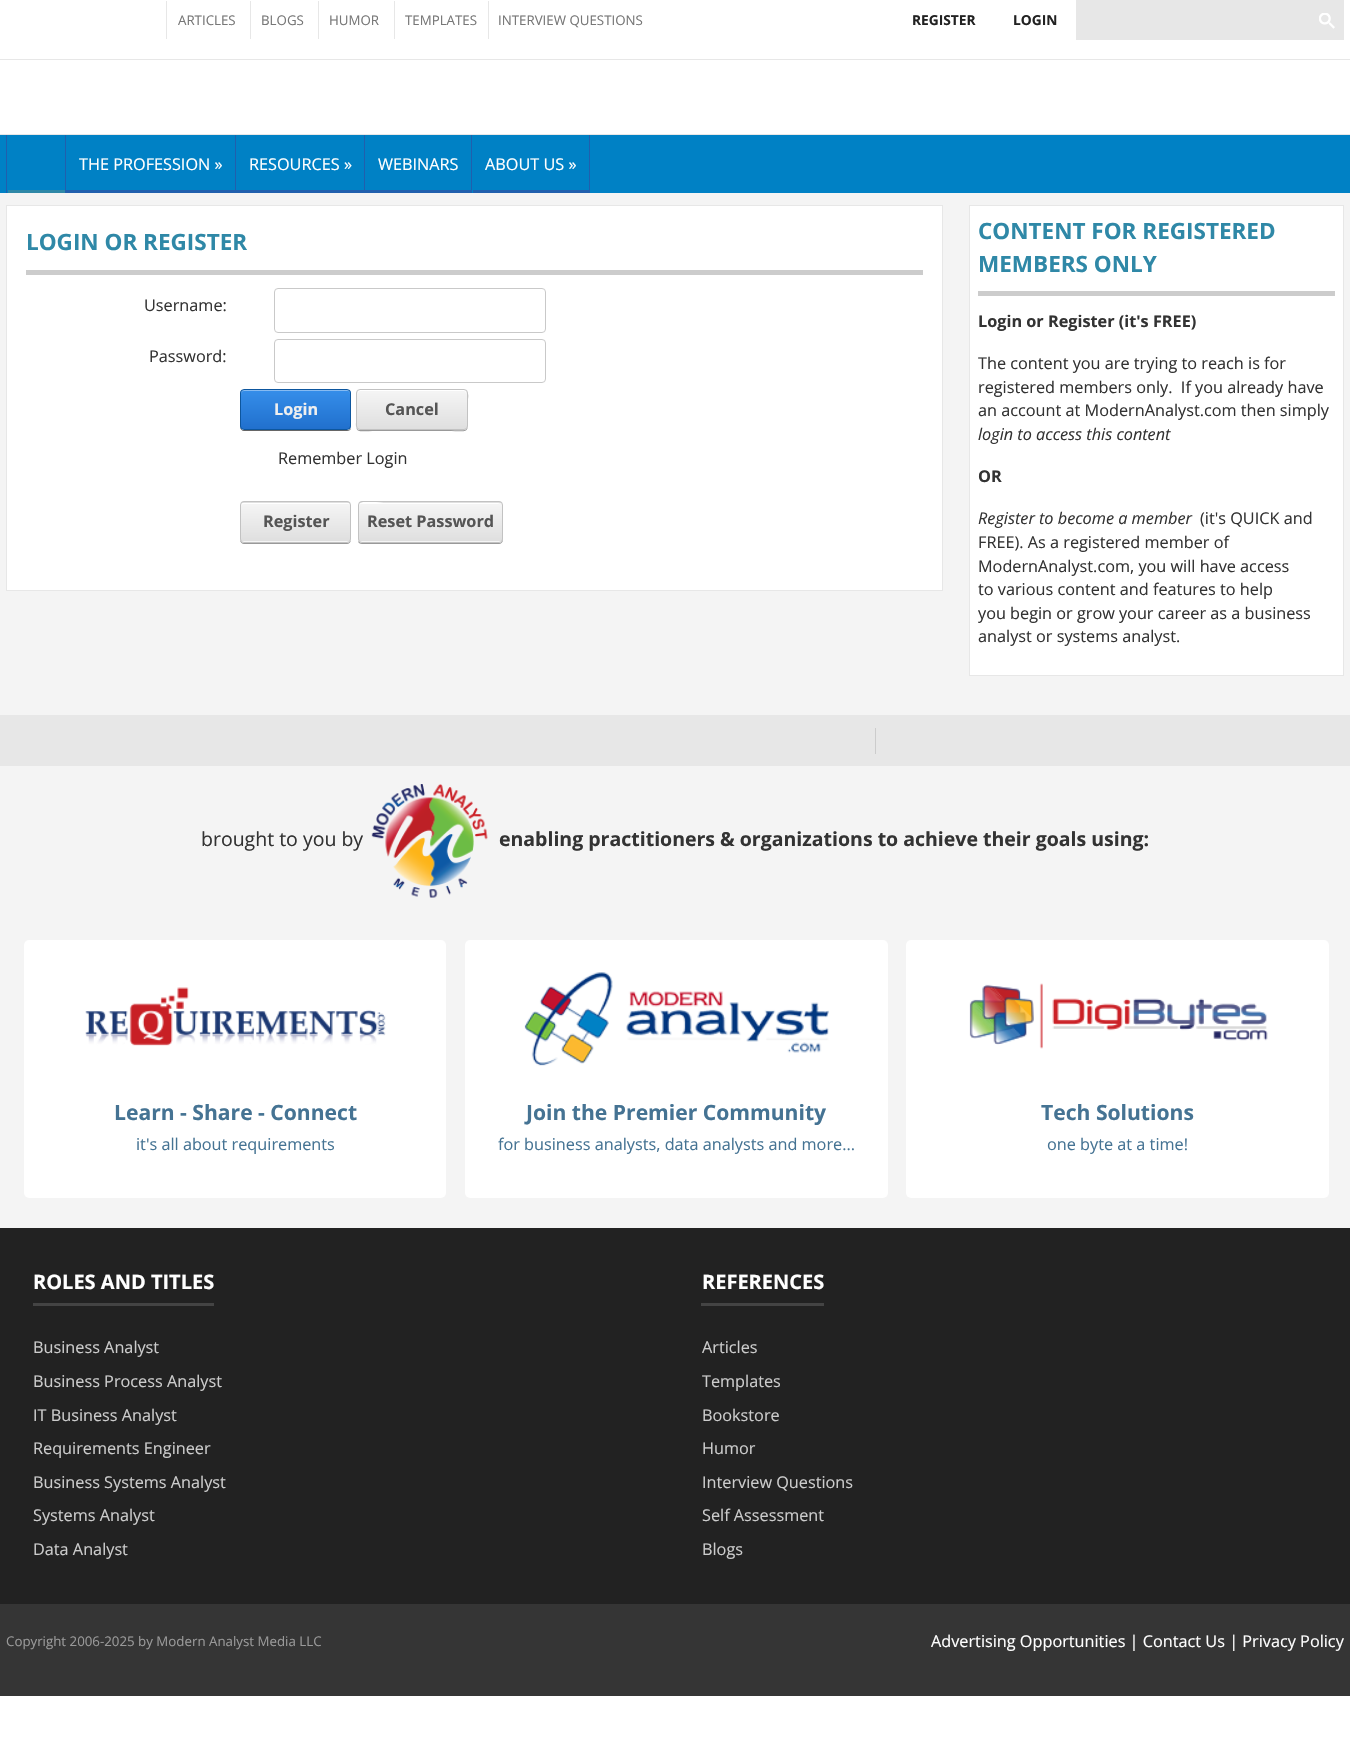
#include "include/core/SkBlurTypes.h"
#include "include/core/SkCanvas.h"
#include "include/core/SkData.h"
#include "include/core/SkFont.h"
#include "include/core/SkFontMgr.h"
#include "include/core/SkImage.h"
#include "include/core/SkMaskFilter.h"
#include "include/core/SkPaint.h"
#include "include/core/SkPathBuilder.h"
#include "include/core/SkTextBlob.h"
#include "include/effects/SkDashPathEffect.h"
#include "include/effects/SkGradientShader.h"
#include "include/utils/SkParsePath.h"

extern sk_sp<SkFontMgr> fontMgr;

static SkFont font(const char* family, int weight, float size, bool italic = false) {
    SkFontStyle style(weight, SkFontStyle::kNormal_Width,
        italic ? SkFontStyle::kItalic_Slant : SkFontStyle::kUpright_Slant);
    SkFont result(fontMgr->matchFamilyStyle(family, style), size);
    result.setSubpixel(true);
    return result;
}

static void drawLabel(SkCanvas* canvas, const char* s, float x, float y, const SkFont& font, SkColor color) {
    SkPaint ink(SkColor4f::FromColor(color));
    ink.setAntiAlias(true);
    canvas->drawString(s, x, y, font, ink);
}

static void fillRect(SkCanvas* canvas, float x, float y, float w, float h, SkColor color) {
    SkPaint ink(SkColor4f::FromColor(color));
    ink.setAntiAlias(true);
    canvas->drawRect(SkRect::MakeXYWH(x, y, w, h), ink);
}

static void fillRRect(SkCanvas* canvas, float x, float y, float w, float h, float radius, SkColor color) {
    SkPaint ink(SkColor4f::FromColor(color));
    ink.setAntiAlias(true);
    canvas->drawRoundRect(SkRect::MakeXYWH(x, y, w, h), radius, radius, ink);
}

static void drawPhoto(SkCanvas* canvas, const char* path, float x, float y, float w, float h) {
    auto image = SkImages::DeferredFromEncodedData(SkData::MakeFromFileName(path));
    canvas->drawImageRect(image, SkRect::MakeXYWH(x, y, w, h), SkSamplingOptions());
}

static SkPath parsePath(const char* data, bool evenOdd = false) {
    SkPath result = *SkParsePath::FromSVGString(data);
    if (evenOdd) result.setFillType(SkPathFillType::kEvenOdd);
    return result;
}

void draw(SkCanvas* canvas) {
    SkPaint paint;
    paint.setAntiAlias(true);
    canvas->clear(0xFFFFFFFF);
    fillRect(canvas, 0, 193, 1350, 1035, 0xFFF4F4F4);
    fillRect(canvas, 0, 59, 1350, 1, 0xFFE7E7E7);
    SkFont font1 = font("Open Sans", 400, 13.3f);
    drawLabel(canvas, "ARTICLES", 178, 25, font1, 0xFF777777);
    fillRect(canvas, 166, 1, 1, 38, 0xFFE7E7E7);
    drawLabel(canvas, "BLOGS", 261, 25, font1, 0xFF777777);
    fillRect(canvas, 250, 1, 1, 38, 0xFFE7E7E7);
    drawLabel(canvas, "HUMOR", 329, 25, font1, 0xFF777777);
    fillRect(canvas, 318, 1, 1, 38, 0xFFE7E7E7);
    drawLabel(canvas, "TEMPLATES", 405, 25, font1, 0xFF777777);
    fillRect(canvas, 394, 1, 1, 38, 0xFFE7E7E7);
    drawLabel(canvas, "INTERVIEW QUESTIONS", 498, 25, font1, 0xFF777777);
    fillRect(canvas, 488, 1, 1, 38, 0xFFE7E7E7);
    SkFont font2 = font("Open Sans", 700, 13.75f);
    drawLabel(canvas, "REGISTER", 912, 25, font2, 0xFF222222);
    drawLabel(canvas, "LOGIN", 1013, 25, font2, 0xFF222222);
    fillRect(canvas, 1076, 0, 268, 40, 0xFFE7E7E7);
    drawPhoto(canvas, "assets/img1.png", 1319, 13, 16, 16);
    fillRect(canvas, 0, 134, 1350, 1, 0xFFE7E7E7);
    fillRect(canvas, 0, 135, 1350, 58, 0xFF0081C5);
    fillRect(canvas, 8, 190, 57, 3, 0xFF2F88A7);
    fillRect(canvas, 65, 135, 1, 58, 0xFF215FAD);
    fillRect(canvas, 6, 135, 1, 58, 0xFF215FAD);
    fillRect(canvas, 66, 190, 169, 3, 0xFF215FAD);
    fillRect(canvas, 235, 135, 1, 58, 0xFF215FAD);
    SkFont font3 = font("Open Sans", 400, 16.25f);
    drawLabel(canvas, "THE PROFESSION »", 79, 170, font3, 0xFFFFFFFF);
    fillRect(canvas, 236, 190, 128, 3, 0xFF215FAD);
    fillRect(canvas, 364, 135, 1, 58, 0xFF215FAD);
    drawLabel(canvas, "RESOURCES »", 249, 170, font3, 0xFFFFFFFF);
    fillRect(canvas, 365, 190, 106, 3, 0xFF215FAD);
    fillRect(canvas, 471, 135, 1, 58, 0xFF215FAD);
    drawLabel(canvas, "WEBINARS", 378, 170, font3, 0xFFFFFFFF);
    fillRect(canvas, 473, 190, 116, 3, 0xFF215FAD);
    fillRect(canvas, 589, 135, 1, 58, 0xFF215FAD);
    drawLabel(canvas, "ABOUT US »", 485, 170, font3, 0xFFFFFFFF);
    paint.setColor(0xFFFFFFFF);
    canvas->drawRect(SkRect::MakeXYWH(6.5f, 205.5f, 936, 385), paint);
    paint.setStroke(true);
    paint.setStrokeWidth(1);
    paint.setColor(0xFFE7E7E7);
    canvas->drawRect(SkRect::MakeXYWH(6.5f, 205.5f, 936, 385), paint);
    fillRect(canvas, 26, 270, 897, 5, 0xFFCCCCCC);
    SkFont font4 = font("Open Sans", 700, 22.5f);
    drawLabel(canvas, "LOGIN OR REGISTER", 26, 250, font4, 0xFF2F88A7);
    drawLabel(canvas, "Username:", 144, 311, font3, 0xFF333333);
    paint.setColor(0xFFC9C9C9);
    canvas->drawRoundRect(SkRect::MakeXYWH(274.5f, 288.5f, 271, 44), 3.5f, 3.5f, paint);
    drawLabel(canvas, "Password:", 149, 362, font3, 0xFF333333);
    canvas->drawRoundRect(SkRect::MakeXYWH(274.5f, 339.5f, 271, 43), 3.5f, 3.5f, paint);
    paint.setStroke(false);
    paint.setColor(0xFF666666);
    canvas->drawPath(parsePath("M240 426V427C240 429 242 431 244 431H347C349 431 351 430 351 428C350 429 349 430 348 430H244C242 430 240 428 240 426Z"), paint);
    canvas->save();
    canvas->clipPath(parsePath("M244 389H347C349 389 351 391 351 393V426C351 428 349 430 347 430H244C242 430 240 428 240 426V393C240 391 242 389 244 389Z"), true);
    {
        const SkColor colors[] = {0xFF358EEA, 0xFF2170CD};
        const float stops[] = {0, 1};
        const SkPoint ends[] = {{296, 390}, {296, 429}};
        paint.setShader(SkGradientShader::MakeLinear(ends, colors, stops, 2, SkTileMode::kClamp));
        paint.setAlpha(255);
    }
    canvas->drawRect(SkRect::MakeXYWH(240, 390, 111, 39), paint);
    canvas->restore();
    paint.setShader(nullptr);
    paint.setColor(0xFF86BBF2);
    canvas->drawPath(parsePath("M244 391H348C349 391 350 392 350 394V392C350 391 349 390 348 390H244C242 390 241 391 241 392V394C241 392 242 391 244 391Z"), paint);
    paint.setStroke(true);
    paint.setColor(0xFF0D569E);
    canvas->drawRoundRect(SkRect::MakeXYWH(240.5f, 389.5f, 110, 40), 3.5f, 3.5f, paint);
    SkFont font5 = font("Open Sans", 700, 16.25f);
    drawLabel(canvas, "Login", 274, 415, font5, 0xFFEFEFEF);
    paint.setStroke(false);
    paint.setColor(0xFF999999);
    canvas->drawPath(parsePath("M356 393V416C356 435 355 431 377 431H447C469 431 468 435 468 416V400C468 398 469 394 467 392L468 415C468 434 469 430 446 430H360C355 430 356 424 356 421Z"), paint);
    canvas->save();
    canvas->clipPath(parsePath("M360 389H464C466 389 468 391 468 393V426C468 428 466 430 464 430H360C358 430 356 428 356 426V393C356 391 358 389 360 389Z"), true);
    {
        const SkColor colors[] = {0xFFF5F5F5, 0xFFDFDFDF};
        const float stops[] = {0, 1};
        const SkPoint ends[] = {{412, 390}, {412, 429}};
        paint.setShader(SkGradientShader::MakeLinear(ends, colors, stops, 2, SkTileMode::kClamp));
        paint.setAlpha(255);
    }
    canvas->drawRect(SkRect::MakeXYWH(356, 390, 112, 39), paint);
    canvas->restore();
    paint.setShader(nullptr);
    paint.setColor(0xFFFFFFFF);
    canvas->drawPath(parsePath("M360 391H464C465 391 466 392 466 394V392C466 391 465 390 464 390H360C359 390 358 391 358 392V394C358 392 359 391 360 391Z"), paint);
    paint.setStroke(true);
    paint.setColor(0xFFC2C2C2);
    canvas->drawRoundRect(SkRect::MakeXYWH(356.5f, 389.5f, 111, 40), 3.5f, 3.5f, paint);
    drawLabel(canvas, "Cancel", 385, 415, font5, 0xFF555555);
    drawLabel(canvas, "Remember Login", 278, 464, font3, 0xFF333333);
    paint.setStroke(false);
    paint.setColor(0xFF999999);
    canvas->drawPath(parsePath("M240 539V540C240 542 242 544 244 544H347C349 544 351 542 351 540C350 542 349 542 348 542H244C242 542 240 541 240 539Z"), paint);
    canvas->save();
    canvas->clipPath(parsePath("M244 501H347C349 501 351 503 351 505V539C351 541 349 543 347 543H244C242 543 240 541 240 539V505C240 503 242 501 244 501Z"), true);
    {
        const SkColor colors[] = {0xFFF5F5F5, 0xFFDFDFDF};
        const float stops[] = {0, 1};
        const SkPoint ends[] = {{296, 464}, {296, 503}};
        paint.setShader(SkGradientShader::MakeLinear(ends, colors, stops, 2, SkTileMode::kClamp));
        paint.setAlpha(255);
    }
    canvas->drawRect(SkRect::MakeXYWH(240, 501, 111, 2), paint);
    {
        const SkColor colors[] = {0xFFF5F5F5, 0xFFDFDFDF};
        const float stops[] = {0, 1};
        const SkPoint ends[] = {{296, 503}, {296, 541}};
        paint.setShader(SkGradientShader::MakeLinear(ends, colors, stops, 2, SkTileMode::kClamp));
        paint.setAlpha(255);
    }
    canvas->drawRect(SkRect::MakeXYWH(240, 503, 111, 38), paint);
    {
        const SkColor colors[] = {0xFFF5F5F5, 0xFFDFDFDF};
        const float stops[] = {0, 1};
        const SkPoint ends[] = {{296, 541}, {296, 580}};
        paint.setShader(SkGradientShader::MakeLinear(ends, colors, stops, 2, SkTileMode::kClamp));
        paint.setAlpha(255);
    }
    canvas->drawRect(SkRect::MakeXYWH(240, 541, 111, 2), paint);
    canvas->restore();
    paint.setShader(nullptr);
    paint.setColor(0xFFFFFFFF);
    canvas->drawPath(parsePath("M244 504H348C349 504 350 505 350 506C350 504 349 503 348 503H243C242 503 241 505 241 506C241 505 242 504 244 504Z"), paint);
    paint.setStroke(true);
    paint.setColor(0xFFC2C2C2);
    canvas->drawRoundRect(SkRect::MakeXYWH(240.5f, 501.5f, 110, 41), 3.5f, 3.5f, paint);
    drawLabel(canvas, "Register", 263, 527, font5, 0xFF555555);
    paint.setStroke(false);
    paint.setColor(0xFF999999);
    canvas->drawPath(parsePath("M358 541C358 543 360 544 362 544H499C501 544 503 542 503 540V507L502 505V539C502 541 501 542 499 542H361C360 542 359 542 358 541Z"), paint);
    canvas->save();
    canvas->clipPath(parsePath("M362 501H499C501 501 503 503 503 505V539C503 541 501 543 499 543H362C360 543 358 541 358 539V505C358 503 360 501 362 501Z"), true);
    {
        const SkColor colors[] = {0xFFF5F5F5, 0xFFDFDFDF};
        const float stops[] = {0, 1};
        const SkPoint ends[] = {{430, 464}, {430, 503}};
        paint.setShader(SkGradientShader::MakeLinear(ends, colors, stops, 2, SkTileMode::kClamp));
        paint.setAlpha(255);
    }
    canvas->drawRect(SkRect::MakeXYWH(358, 501, 145, 2), paint);
    {
        const SkColor colors[] = {0xFFF5F5F5, 0xFFDFDFDF};
        const float stops[] = {0, 1};
        const SkPoint ends[] = {{430, 503}, {430, 541}};
        paint.setShader(SkGradientShader::MakeLinear(ends, colors, stops, 2, SkTileMode::kClamp));
        paint.setAlpha(255);
    }
    canvas->drawRect(SkRect::MakeXYWH(358, 503, 145, 38), paint);
    {
        const SkColor colors[] = {0xFFF5F5F5, 0xFFDFDFDF};
        const float stops[] = {0, 1};
        const SkPoint ends[] = {{430, 541}, {430, 580}};
        paint.setShader(SkGradientShader::MakeLinear(ends, colors, stops, 2, SkTileMode::kClamp));
        paint.setAlpha(255);
    }
    canvas->drawRect(SkRect::MakeXYWH(358, 541, 145, 2), paint);
    canvas->restore();
    paint.setShader(nullptr);
    paint.setColor(0xFFFFFFFF);
    canvas->drawPath(parsePath("M361 504H499C500 504 501 505 501 506L500 504L498 503H384C382 503 359 498 359 506C359 505 360 504 361 504Z"), paint);
    paint.setStroke(true);
    paint.setColor(0xFFC2C2C2);
    canvas->drawRoundRect(SkRect::MakeXYWH(358.5f, 501.5f, 144, 41), 3.5f, 3.5f, paint);
    drawLabel(canvas, "Reset Password", 367, 527, font5, 0xFF555555);
    paint.setStroke(false);
    paint.setColor(0xFFFFFFFF);
    canvas->drawRect(SkRect::MakeXYWH(969.5f, 205.5f, 374, 470), paint);
    paint.setStroke(true);
    paint.setColor(0xFFE7E7E7);
    canvas->drawRect(SkRect::MakeXYWH(969.5f, 205.5f, 374, 470), paint);
    fillRect(canvas, 978, 291, 357, 5, 0xFFCCCCCC);
    drawLabel(canvas, "CONTENT FOR REGISTERED", 978, 239, font4, 0xFF2F88A7);
    drawLabel(canvas, "MEMBERS ONLY", 978, 272, font4, 0xFF2F88A7);
    drawLabel(canvas, "Login or Register (it's FREE)", 978, 327, font5, 0xFF333333);
    drawLabel(canvas, "The content you are trying to reach is for", 978, 369, font3, 0xFF333333);
    drawLabel(canvas, "registered members only.  If you already have", 978, 393, font3, 0xFF333333);
    drawLabel(canvas, "an account at ModernAnalyst.com then simply", 978, 416, font3, 0xFF333333);
    SkFont font6 = font("Open Sans", 400, 16.25f, true);
    drawLabel(canvas, "login to access this content", 978, 440, font6, 0xFF333333);
    drawLabel(canvas, "OR", 978, 482, font5, 0xFF333333);
    drawLabel(canvas, "Register to become a member", 978, 524, font6, 0xFF333333);
    drawLabel(canvas, "(it's QUICK and", 1200, 524, font3, 0xFF333333);
    drawLabel(canvas, "FREE). As a registered member of", 978, 548, font3, 0xFF333333);
    drawLabel(canvas, "ModernAnalyst.com, you will have access", 978, 572, font3, 0xFF333333);
    drawLabel(canvas, "to various content and features to help", 978, 595, font3, 0xFF333333);
    drawLabel(canvas, "you begin or grow your career as a business", 978, 619, font3, 0xFF333333);
    drawLabel(canvas, "analyst or systems analyst.", 978, 642, font3, 0xFF333333);
    fillRect(canvas, 0, 715, 1350, 51, 0xFFE7E7E7);
    fillRect(canvas, 875, 728, 1, 26, 0xFFCCCCCC);
    SkFont font7 = font("Open Sans", 400, 19.5f);
    drawLabel(canvas, "brought to you by", 201, 846, font7, 0xFF333333);
    drawPhoto(canvas, "assets/img2.png", 371, 784, 117, 114);
    SkFont font8 = font("Open Sans", 700, 19.5f);
    drawLabel(canvas, "enabling practitioners & organizations to achieve their goals using:", 499, 846, font8, 0xFF333333);
    fillRRect(canvas, 24, 940, 422, 258, 5, 0xFFFFFFFF);
    drawPhoto(canvas, "assets/img3.png", 85, 987, 301, 59);
    SkFont font9 = font("Open Sans", 700, 21.1f);
    drawLabel(canvas, "Learn - Share - Connect", 114, 1120, font9, 0xFF457393);
    drawLabel(canvas, "it's all about requirements", 136, 1150, font3, 0xFF457393);
    fillRRect(canvas, 465, 940, 423, 258, 5, 0xFFFFFFFF);
    drawPhoto(canvas, "assets/img4.png", 524, 972, 305, 94);
    drawLabel(canvas, "Join the Premier Community", 526, 1120, font9, 0xFF457393);
    drawLabel(canvas, "for business analysts, data analysts and more...", 498, 1150, font3, 0xFF457393);
    fillRRect(canvas, 906, 940, 423, 258, 5, 0xFFFFFFFF);
    drawPhoto(canvas, "assets/img5.png", 969, 983, 299, 66);
    drawLabel(canvas, "Tech Solutions", 1041, 1120, font9, 0xFF457393);
    drawLabel(canvas, "one byte at a time!", 1047, 1150, font3, 0xFF457393);
    fillRect(canvas, 0, 1228, 1350, 376, 0xFF222222);
    SkFont font10 = font("Open Sans", 700, 20);
    drawLabel(canvas, "ROLES AND TITLES", 33, 1289, font10, 0xFFFFFFFF);
    fillRect(canvas, 33, 1303, 181, 3, 0xFF444444);
    drawLabel(canvas, "Business Analyst", 33, 1353, font3, 0xFFCCCCCC);
    drawLabel(canvas, "Business Process Analyst", 33, 1387, font3, 0xFFCCCCCC);
    drawLabel(canvas, "IT Business Analyst", 33, 1421, font3, 0xFFCCCCCC);
    drawLabel(canvas, "Requirements Engineer", 33, 1454, font3, 0xFFCCCCCC);
    drawLabel(canvas, "Business Systems Analyst", 33, 1488, font3, 0xFFCCCCCC);
    drawLabel(canvas, "Systems Analyst", 33, 1521, font3, 0xFFCCCCCC);
    drawLabel(canvas, "Data Analyst", 33, 1555, font3, 0xFFCCCCCC);
    drawLabel(canvas, "REFERENCES", 702, 1289, font10, 0xFFFFFFFF);
    fillRect(canvas, 701, 1303, 123, 3, 0xFF444444);
    drawLabel(canvas, "Articles", 702, 1353, font3, 0xFFCCCCCC);
    drawLabel(canvas, "Templates", 702, 1387, font3, 0xFFCCCCCC);
    drawLabel(canvas, "Bookstore", 702, 1421, font3, 0xFFCCCCCC);
    drawLabel(canvas, "Humor", 702, 1454, font3, 0xFFCCCCCC);
    drawLabel(canvas, "Interview Questions", 702, 1488, font3, 0xFFCCCCCC);
    drawLabel(canvas, "Self Assessment", 702, 1521, font3, 0xFFCCCCCC);
    drawLabel(canvas, "Blogs", 702, 1555, font3, 0xFFCCCCCC);
    fillRect(canvas, 0, 1604, 1350, 92, 0xFF353535);
    drawLabel(canvas, "Copyright 2006-2025 by Modern Analyst Media LLC", 6, 1646, font1, 0xFF999999);
    drawLabel(canvas, "Advertising Opportunities | Contact Us | Privacy Policy", 931, 1647, font3, 0xFFFFFFFF);
}
